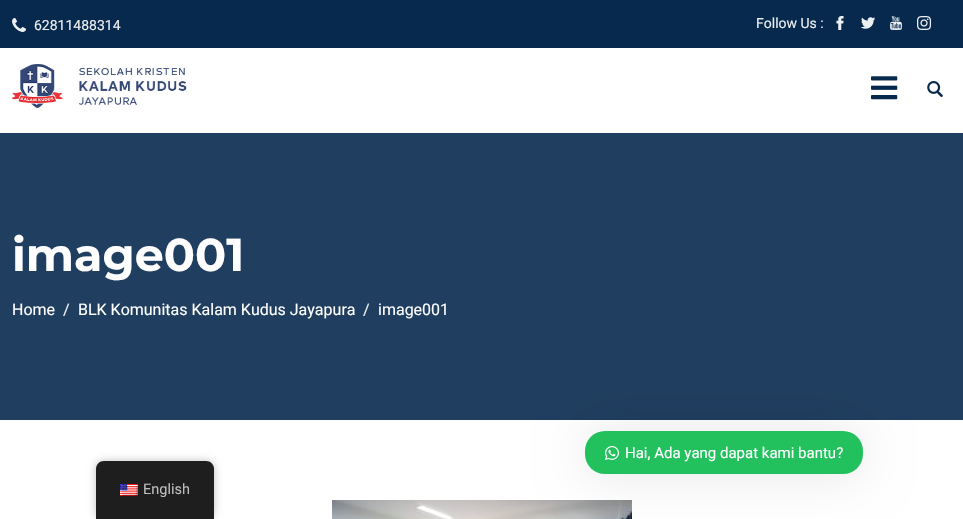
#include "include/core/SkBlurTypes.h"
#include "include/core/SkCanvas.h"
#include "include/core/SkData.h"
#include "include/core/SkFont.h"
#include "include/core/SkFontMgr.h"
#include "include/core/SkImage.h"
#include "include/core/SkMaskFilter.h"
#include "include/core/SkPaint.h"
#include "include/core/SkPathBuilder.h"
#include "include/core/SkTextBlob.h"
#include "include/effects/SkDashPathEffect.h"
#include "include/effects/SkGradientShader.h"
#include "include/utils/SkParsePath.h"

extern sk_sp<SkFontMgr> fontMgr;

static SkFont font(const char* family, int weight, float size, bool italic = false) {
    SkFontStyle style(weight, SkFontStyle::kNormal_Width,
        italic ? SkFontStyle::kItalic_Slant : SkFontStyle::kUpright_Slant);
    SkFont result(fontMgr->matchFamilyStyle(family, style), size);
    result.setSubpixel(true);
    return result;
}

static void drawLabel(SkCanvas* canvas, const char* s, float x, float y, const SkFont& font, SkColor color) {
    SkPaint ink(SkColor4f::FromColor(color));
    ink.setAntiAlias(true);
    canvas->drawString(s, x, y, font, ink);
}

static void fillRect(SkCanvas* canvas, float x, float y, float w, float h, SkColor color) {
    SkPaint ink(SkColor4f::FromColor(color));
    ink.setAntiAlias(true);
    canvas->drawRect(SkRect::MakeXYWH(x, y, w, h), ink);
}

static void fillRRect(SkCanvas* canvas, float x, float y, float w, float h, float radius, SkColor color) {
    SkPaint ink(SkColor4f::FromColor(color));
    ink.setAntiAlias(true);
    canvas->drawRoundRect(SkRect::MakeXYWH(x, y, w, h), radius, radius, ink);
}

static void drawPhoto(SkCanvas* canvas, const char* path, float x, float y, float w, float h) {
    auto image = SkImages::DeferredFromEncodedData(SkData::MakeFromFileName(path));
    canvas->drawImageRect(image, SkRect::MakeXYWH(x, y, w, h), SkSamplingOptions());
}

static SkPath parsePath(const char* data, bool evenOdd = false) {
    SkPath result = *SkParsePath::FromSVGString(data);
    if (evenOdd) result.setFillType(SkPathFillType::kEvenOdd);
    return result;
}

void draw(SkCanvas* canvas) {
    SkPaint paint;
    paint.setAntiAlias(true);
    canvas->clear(0xFFFFFFFF);
    fillRect(canvas, 0, 0, 963, 48, 0xFF07294D);
    drawPhoto(canvas, "assets/img1.png", 12, 18, 14, 14);
    SkFont font1 = font("Roboto", 400, 14);
    drawLabel(canvas, "62811488314", 34, 30, font1, 0xFFEDF0F2);
    drawLabel(canvas, "Follow Us :", 756, 28, font1, 0xFFEDF0F2);
    drawPhoto(canvas, "assets/img2.png", 836, 16, 8, 14);
    drawPhoto(canvas, "assets/img3.png", 861, 17, 14, 12);
    drawPhoto(canvas, "assets/img4.png", 890, 16, 12, 14);
    drawPhoto(canvas, "assets/img5.png", 917, 16, 15, 14);
    drawPhoto(canvas, "assets/img6.png", 12, 64, 175, 44);
    drawPhoto(canvas, "assets/img7.png", 871, 76, 27, 24);
    drawPhoto(canvas, "assets/img8.png", 927, 81, 16, 16);
    fillRect(canvas, 0, 133, 963, 287, 0xFF203E5F);
    SkFont font2 = font("Montserrat", 700, 46);
    drawLabel(canvas, "image001", 12, 271, font2, 0xFFFFFFFF);
    SkFont font3 = font("Roboto", 400, 16);
    drawLabel(canvas, "Home", 12, 315, font3, 0xFFFFFFFF);
    drawLabel(canvas, "/", 63, 315, font3, 0xFFEDF0F2);
    drawLabel(canvas, "BLK Komunitas Kalam Kudus Jayapura", 78, 315, font3, 0xFFFFFFFF);
    drawLabel(canvas, "/", 363, 315, font3, 0xFFEDF0F2);
    drawLabel(canvas, "image001", 378, 315, font3, 0xFFFFFFFF);
    drawPhoto(canvas, "assets/img9.png", 332, 500, 300, 19);
    paint.setColor(0x1A000000);
    paint.setMaskFilter(SkMaskFilter::MakeBlur(kNormal_SkBlurStyle, 25));
    canvas->drawRoundRect(SkRect::MakeXYWH(585, 431, 278, 43), 20, 20, paint);
    paint.setMaskFilter(nullptr);
    fillRRect(canvas, 585, 431, 278, 43, 20, 0xFF22C15E);
    drawPhoto(canvas, "assets/img10.png", 605, 446, 14, 14);
    SkFont font4 = font("Roboto", 400, 15);
    drawLabel(canvas, "Hai, Ada yang dapat kami bantu?", 625, 458, font4, 0xFFFFFFFF);
    paint.setColor(0x40000000);
    paint.setMaskFilter(SkMaskFilter::MakeBlur(kNormal_SkBlurStyle, 4));
    canvas->drawRoundRect(SkRect::MakeXYWH(96, 461, 118, 58), 8, 8, paint);
    paint.setMaskFilter(nullptr);
    paint.setColor(0xFF1E1E1E);
    canvas->drawPath(parsePath("M104 461H206C210.5 461 214 464.5 214 469V519H96V469C96 464.5 99.5 461 104 461Z"), paint);
    drawPhoto(canvas, "assets/img11.png", 120, 484, 18, 12);
    SkFont font5 = font("Roboto", 400, 14.5f);
    drawLabel(canvas, "English", 143, 494, font5, 0xFFBDBDBD);
}
